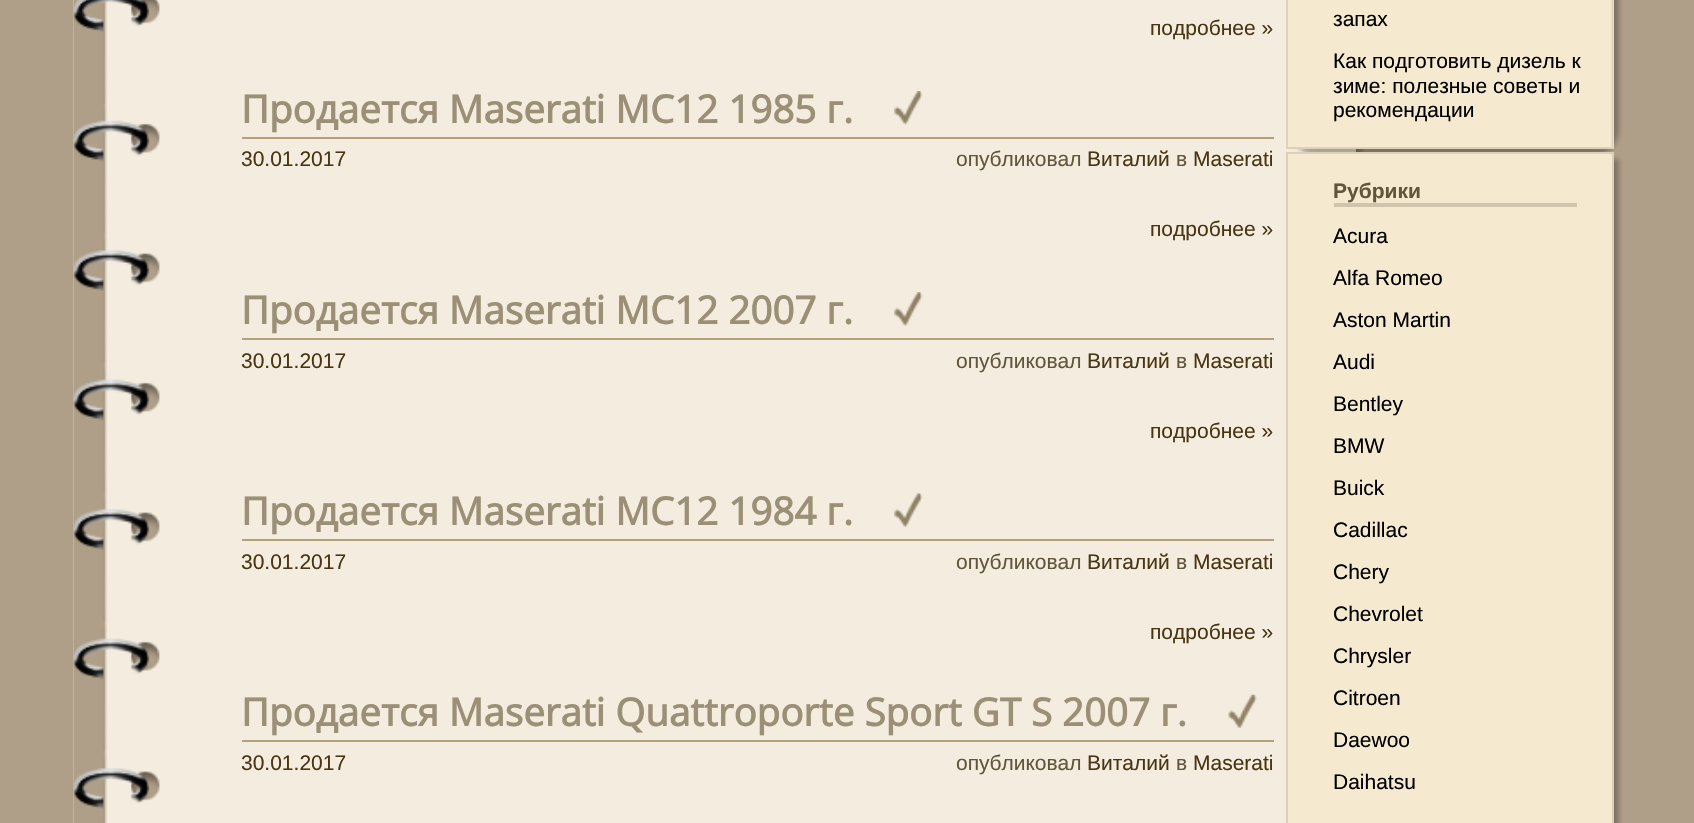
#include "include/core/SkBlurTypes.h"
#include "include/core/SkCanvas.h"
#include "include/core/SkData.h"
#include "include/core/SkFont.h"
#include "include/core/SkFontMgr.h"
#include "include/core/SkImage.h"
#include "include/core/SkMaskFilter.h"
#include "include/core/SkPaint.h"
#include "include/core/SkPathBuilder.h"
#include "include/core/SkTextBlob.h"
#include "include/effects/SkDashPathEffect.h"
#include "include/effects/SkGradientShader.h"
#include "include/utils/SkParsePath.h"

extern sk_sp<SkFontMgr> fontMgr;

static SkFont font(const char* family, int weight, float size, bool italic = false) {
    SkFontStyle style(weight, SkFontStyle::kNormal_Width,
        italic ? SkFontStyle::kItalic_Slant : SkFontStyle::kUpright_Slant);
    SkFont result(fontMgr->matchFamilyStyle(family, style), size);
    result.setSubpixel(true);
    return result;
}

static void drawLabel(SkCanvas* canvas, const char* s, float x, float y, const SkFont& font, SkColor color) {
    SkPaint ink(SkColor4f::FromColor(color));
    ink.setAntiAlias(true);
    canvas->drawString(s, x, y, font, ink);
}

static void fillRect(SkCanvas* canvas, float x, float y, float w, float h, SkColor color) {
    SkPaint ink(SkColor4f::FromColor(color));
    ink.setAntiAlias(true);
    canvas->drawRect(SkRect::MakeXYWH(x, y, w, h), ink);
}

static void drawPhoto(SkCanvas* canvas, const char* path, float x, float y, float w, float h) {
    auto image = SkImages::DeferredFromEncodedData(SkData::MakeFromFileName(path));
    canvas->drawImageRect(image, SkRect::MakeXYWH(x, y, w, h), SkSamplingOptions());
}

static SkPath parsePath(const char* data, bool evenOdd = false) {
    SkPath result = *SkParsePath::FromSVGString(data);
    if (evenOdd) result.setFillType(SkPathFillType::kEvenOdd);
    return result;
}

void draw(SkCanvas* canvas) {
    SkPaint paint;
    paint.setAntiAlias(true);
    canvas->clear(0xFFAF9F88);
    drawPhoto(canvas, "assets/img1.png", 73, 0, 169, 823);
    paint.setColor(0x66323232);
    paint.setMaskFilter(SkMaskFilter::MakeBlur(kNormal_SkBlurStyle, 2.5f));
    canvas->drawRect(SkRect::MakeXYWH(247, -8, 1115, 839), paint);
    paint.setMaskFilter(nullptr);
    fillRect(canvas, 242, 0, 1114, 823, 0xFFF4EDDF);
    SkFont font1 = font("Liberation Sans", 400, 21);
    drawLabel(canvas, "подробнее »", 1150, 35, font1, 0xFF483613);
    fillRect(canvas, 242, 137, 1032, 2, 0xFFB3A279);
    SkFont font2 = font("Open Sans", 700, 38.5f);
    drawLabel(canvas, "Продается Maserati MC12 1985 г.", 241, 123, font2, 0xFF9B8F76);
    drawPhoto(canvas, "assets/img2.png", 894, 91, 29, 34);
    drawLabel(canvas, "30.01.2017", 241, 166, font1, 0xFF483613);
    drawLabel(canvas, "опубликовал", 956, 166, font1, 0xFF61553C);
    drawLabel(canvas, "Виталий", 1087, 166, font1, 0xFF483613);
    drawLabel(canvas, "в", 1176, 166, font1, 0xFF61553C);
    drawLabel(canvas, "Maserati", 1193, 166, font1, 0xFF483613);
    drawLabel(canvas, "подробнее »", 1150, 236, font1, 0xFF483613);
    fillRect(canvas, 242, 338, 1032, 2, 0xFFB3A279);
    drawLabel(canvas, "Продается Maserati MC12 2007 г.", 241, 324, font2, 0xFF9B8F76);
    drawPhoto(canvas, "assets/img3.png", 894, 292, 29, 34);
    drawLabel(canvas, "30.01.2017", 241, 368, font1, 0xFF483613);
    drawLabel(canvas, "опубликовал", 956, 368, font1, 0xFF61553C);
    drawLabel(canvas, "Виталий", 1087, 368, font1, 0xFF483613);
    drawLabel(canvas, "в", 1176, 368, font1, 0xFF61553C);
    drawLabel(canvas, "Maserati", 1193, 368, font1, 0xFF483613);
    drawLabel(canvas, "подробнее »", 1150, 438, font1, 0xFF483613);
    fillRect(canvas, 242, 539, 1032, 2, 0xFFB3A279);
    drawLabel(canvas, "Продается Maserati MC12 1984 г.", 241, 525, font2, 0xFF9B8F76);
    drawPhoto(canvas, "assets/img4.png", 894, 493, 29, 34);
    drawLabel(canvas, "30.01.2017", 241, 569, font1, 0xFF483613);
    drawLabel(canvas, "опубликовал", 956, 569, font1, 0xFF61553C);
    drawLabel(canvas, "Виталий", 1087, 569, font1, 0xFF483613);
    drawLabel(canvas, "в", 1176, 569, font1, 0xFF61553C);
    drawLabel(canvas, "Maserati", 1193, 569, font1, 0xFF483613);
    drawLabel(canvas, "подробнее »", 1150, 639, font1, 0xFF483613);
    fillRect(canvas, 242, 740, 1032, 2, 0xFFB3A279);
    drawLabel(canvas, "Продается Maserati Quattroporte Sport GT S 2007 г.", 241, 726, font2, 0xFF9B8F76);
    drawPhoto(canvas, "assets/img5.png", 1228, 694, 29, 34);
    drawLabel(canvas, "30.01.2017", 241, 770, font1, 0xFF483613);
    drawLabel(canvas, "опубликовал", 956, 770, font1, 0xFF61553C);
    drawLabel(canvas, "Виталий", 1087, 770, font1, 0xFF483613);
    drawLabel(canvas, "в", 1176, 770, font1, 0xFF61553C);
    drawLabel(canvas, "Maserati", 1193, 770, font1, 0xFF483613);
    paint.setMaskFilter(SkMaskFilter::MakeBlur(kNormal_SkBlurStyle, 2.5f));
    canvas->drawRoundRect(SkRect::MakeXYWH(1292, -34, 327, 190), 26, 26, paint);
    paint.setMaskFilter(nullptr);
    paint.setColor(0xFFF5EAD0);
    canvas->drawPath(parsePath("M1312-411H1614V149H1286V-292C1286-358 1298-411 1312-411Z"), paint);
    paint.setStroke(true);
    paint.setStrokeWidth(1.8f);
    paint.setColor(0xFFDCD0B6);
    canvas->drawPath(parsePath("M1312.5-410.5H1612.5V148H1287V-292C1287-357.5 1298.5-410.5 1312.5-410.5Z"), paint);
    drawLabel(canvas, "запах", 1333, 26, font1, 0xFF000000);
    drawLabel(canvas, "Как подготовить дизель к", 1333, 68, font1, 0xFF000000);
    drawLabel(canvas, "зиме: полезные советы и", 1333, 93, font1, 0xFF000000);
    drawLabel(canvas, "рекомендации", 1333, 117, font1, 0xFF000000);
    paint.setStroke(false);
    paint.setColor(0x66323232);
    paint.setMaskFilter(SkMaskFilter::MakeBlur(kNormal_SkBlurStyle, 2.5f));
    canvas->drawRect(SkRect::MakeXYWH(1292, 159, 327, 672), paint);
    paint.setMaskFilter(nullptr);
    paint.setColor(0xFFF5EAD0);
    canvas->drawRect(SkRect::MakeXYWH(1287, 153, 326, 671), paint);
    paint.setStroke(true);
    paint.setStrokeWidth(2);
    paint.setColor(0xFFDCD0B6);
    canvas->drawRect(SkRect::MakeXYWH(1287, 153, 326, 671), paint);
    fillRect(canvas, 1334, 203, 243, 4, 0xFFCFC5AD);
    SkFont font3 = font("Liberation Sans", 700, 21);
    drawLabel(canvas, "Рубрики", 1333, 198, font3, 0xFF61553C);
    drawLabel(canvas, "Acura", 1333, 243, font1, 0xFF000000);
    drawLabel(canvas, "Alfa Romeo", 1333, 285, font1, 0xFF000000);
    drawLabel(canvas, "Aston Martin", 1333, 327, font1, 0xFF000000);
    drawLabel(canvas, "Audi", 1333, 369, font1, 0xFF000000);
    drawLabel(canvas, "Bentley", 1333, 411, font1, 0xFF000000);
    drawLabel(canvas, "BMW", 1333, 453, font1, 0xFF000000);
    drawLabel(canvas, "Buick", 1333, 495, font1, 0xFF000000);
    drawLabel(canvas, "Cadillac", 1333, 537, font1, 0xFF000000);
    drawLabel(canvas, "Chery", 1333, 579, font1, 0xFF000000);
    drawLabel(canvas, "Chevrolet", 1333, 621, font1, 0xFF000000);
    drawLabel(canvas, "Chrysler", 1333, 663, font1, 0xFF000000);
    drawLabel(canvas, "Citroen", 1333, 705, font1, 0xFF000000);
    drawLabel(canvas, "Daewoo", 1333, 747, font1, 0xFF000000);
    drawLabel(canvas, "Daihatsu", 1333, 789, font1, 0xFF000000);
}
